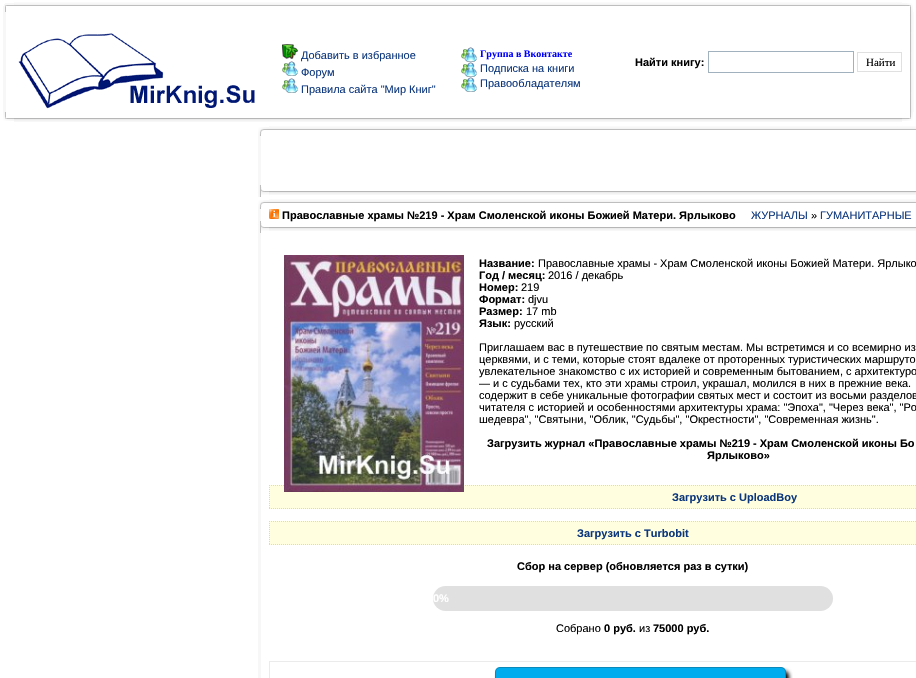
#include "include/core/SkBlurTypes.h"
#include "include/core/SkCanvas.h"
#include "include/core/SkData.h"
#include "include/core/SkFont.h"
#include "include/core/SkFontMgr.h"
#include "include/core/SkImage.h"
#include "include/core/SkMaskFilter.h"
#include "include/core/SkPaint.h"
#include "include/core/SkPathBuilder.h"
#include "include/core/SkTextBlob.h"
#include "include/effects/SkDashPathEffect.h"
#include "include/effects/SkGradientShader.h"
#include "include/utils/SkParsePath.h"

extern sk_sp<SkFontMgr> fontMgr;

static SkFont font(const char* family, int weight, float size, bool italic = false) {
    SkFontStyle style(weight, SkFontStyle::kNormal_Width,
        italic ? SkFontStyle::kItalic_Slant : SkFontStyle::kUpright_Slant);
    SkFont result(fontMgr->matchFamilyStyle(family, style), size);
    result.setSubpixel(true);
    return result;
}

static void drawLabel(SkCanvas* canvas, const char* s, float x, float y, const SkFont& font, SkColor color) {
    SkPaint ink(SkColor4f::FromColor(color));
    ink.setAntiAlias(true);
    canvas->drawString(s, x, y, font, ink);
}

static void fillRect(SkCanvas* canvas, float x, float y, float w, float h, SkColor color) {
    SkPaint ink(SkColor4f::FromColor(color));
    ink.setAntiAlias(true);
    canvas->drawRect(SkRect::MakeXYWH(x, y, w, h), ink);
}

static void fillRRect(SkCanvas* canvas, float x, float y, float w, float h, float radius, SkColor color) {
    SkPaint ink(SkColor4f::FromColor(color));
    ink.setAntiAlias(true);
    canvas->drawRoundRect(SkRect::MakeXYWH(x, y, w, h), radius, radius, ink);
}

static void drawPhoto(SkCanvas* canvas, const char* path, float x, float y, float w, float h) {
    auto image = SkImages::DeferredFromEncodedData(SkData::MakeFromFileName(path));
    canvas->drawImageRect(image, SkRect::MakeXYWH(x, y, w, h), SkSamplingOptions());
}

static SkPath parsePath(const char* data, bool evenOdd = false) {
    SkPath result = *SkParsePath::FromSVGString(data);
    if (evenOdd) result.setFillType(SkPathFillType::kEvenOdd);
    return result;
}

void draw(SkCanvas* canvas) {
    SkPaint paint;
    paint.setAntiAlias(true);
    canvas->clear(0xFFFFFFFF);
    drawPhoto(canvas, "assets/img1.png", 3, 3, 11, 9);
    drawPhoto(canvas, "assets/img2.png", 14, 2, 888, 4);
    drawPhoto(canvas, "assets/img3.png", 902, 3, 11, 9);
    fillRect(canvas, 3, 12, 3, 100, 0xFFF7F7F7);
    drawPhoto(canvas, "assets/img4.png", 18, 33, 237, 76);
    drawPhoto(canvas, "assets/img5.png", 282, 44, 16, 15);
    SkFont font1 = font("Liberation Sans", 400, 11);
    drawLabel(canvas, "Добавить в избранное", 301, 59, font1, 0xFF0D377C);
    drawPhoto(canvas, "assets/img6.png", 282, 61, 16, 15);
    drawLabel(canvas, "Форум", 301, 76, font1, 0xFF0D377C);
    drawPhoto(canvas, "assets/img6.png", 282, 78, 16, 15);
    drawLabel(canvas, "Правила сайта \"Мир Книг\"", 301, 93, font1, 0xFF0D377C);
    drawPhoto(canvas, "assets/img6.png", 461, 47, 16, 15);
    SkFont font2 = font("Liberation Serif", 700, 10);
    drawLabel(canvas, "Группа в Вконтакте", 480, 57, font2, 0xFF0000FF);
    drawPhoto(canvas, "assets/img6.png", 461, 62, 16, 15);
    drawLabel(canvas, "Подписка на книги", 480, 72, font1, 0xFF0D377C);
    drawPhoto(canvas, "assets/img6.png", 461, 77, 16, 15);
    drawLabel(canvas, "Правообладателям", 480, 87, font1, 0xFF0D377C);
    SkFont font3 = font("Liberation Sans", 700, 11);
    drawLabel(canvas, "Найти книгу:", 635, 66, font3, 0xFF000000);
    paint.setStroke(true);
    paint.setStrokeWidth(1);
    paint.setColor(0xFFA1B1BE);
    canvas->drawRect(SkRect::MakeXYWH(708.5f, 51.5f, 145, 21), paint);
    paint.setColor(0xFFE0E0E0);
    canvas->drawRect(SkRect::MakeXYWH(857.5f, 52.5f, 44, 19), paint);
    SkFont font4 = font("Liberation Serif", 400, 11);
    drawLabel(canvas, "Найти", 866, 66, font4, 0xFF000000);
    drawPhoto(canvas, "assets/img7.png", 910, 12, 4, 100);
    drawPhoto(canvas, "assets/img8.png", 3, 112, 11, 9);
    drawPhoto(canvas, "assets/img9.png", 14, 118, 888, 4);
    drawPhoto(canvas, "assets/img10.png", 902, 112, 11, 9);
    drawPhoto(canvas, "assets/img11.png", 258, 127, 11, 9);
    drawPhoto(canvas, "assets/img12.png", 269, 126, 647, 4);
    fillRect(canvas, 258, 136, 3, 49, 0xFFF7F7F7);
    drawPhoto(canvas, "assets/img13.png", 258, 185, 11, 12);
    drawPhoto(canvas, "assets/img14.png", 269, 191, 647, 4);
    drawPhoto(canvas, "assets/img11.png", 258, 200, 11, 9);
    drawPhoto(canvas, "assets/img12.png", 269, 199, 647, 4);
    fillRect(canvas, 258, 209, 3, 12, 0xFFF7F7F7);
    drawPhoto(canvas, "assets/img15.png", 269, 209, 10, 10);
    drawLabel(canvas, "Православные храмы №219 - Храм Смоленской иконы Божией Матери. Ярлыково", 282, 219, font3, 0xFF000000);
    drawLabel(canvas, "ЖУРНАЛЫ", 751, 219, font1, 0xFF0D377C);
    drawLabel(canvas, "»", 811, 219, font1, 0xFF000000);
    drawLabel(canvas, "ГУМАНИТАРНЫЕ", 820, 219, font1, 0xFF0D377C);
    fillRect(canvas, 258, 221, 2, 12, 0xFFF7F7F7);
    drawPhoto(canvas, "assets/img16.png", 260, 221, 9, 12);
    drawPhoto(canvas, "assets/img14.png", 269, 227, 647, 4);
    fillRect(canvas, 258, 233, 3, 445, 0xFFF7F7F7);
    fillRect(canvas, 269, 485, 647, 24, 0xFFFFFFE0);
    paint.setColor(0xFFD8D8D8);
    paint.setPathEffect(SkDashPathEffect::Make({{1, 1}}, 0));
    canvas->drawPath(parsePath("M269 485.5H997"), paint);
    paint.setPathEffect(nullptr);
    drawPhoto(canvas, "assets/img17.png", 284, 255, 180, 237);
    drawLabel(canvas, "Название:", 479, 267, font3, 0xFF000000);
    drawLabel(canvas, "Православные храмы - Храм Смоленской иконы Божией Матери. Ярлыко", 538, 267, font1, 0xFF000000);
    drawLabel(canvas, "Год / месяц:", 479, 279, font3, 0xFF000000);
    drawLabel(canvas, "2016 / декабрь", 548, 279, font1, 0xFF000000);
    drawLabel(canvas, "Номер:", 479, 291, font3, 0xFF000000);
    drawLabel(canvas, "219", 521, 291, font1, 0xFF000000);
    drawLabel(canvas, "Формат:", 479, 303, font3, 0xFF000000);
    drawLabel(canvas, "djvu", 528, 303, font1, 0xFF000000);
    drawLabel(canvas, "Размер:", 479, 315, font3, 0xFF000000);
    drawLabel(canvas, "17 mb", 526, 315, font1, 0xFF000000);
    drawLabel(canvas, "Язык:", 479, 327, font3, 0xFF000000);
    drawLabel(canvas, "русский", 514, 327, font1, 0xFF000000);
    drawLabel(canvas, "Приглашаем вас в путешествие по святым местам. Мы встретимся и со всемирно из", 479, 351, font1, 0xFF000000);
    drawLabel(canvas, "церквями, и с теми, которые стоят вдалеке от проторенных туристических маршруто", 479, 363, font1, 0xFF000000);
    drawLabel(canvas, "увлекательное знакомство с их историей и современным бытованием, с архитектуро", 479, 375, font1, 0xFF000000);
    drawLabel(canvas, "— и с судьбами тех, кто эти храмы строил, украшал, молился в них в прежние века.", 479, 387, font1, 0xFF000000);
    drawLabel(canvas, "содержит в себе уникальные фотографии святых мест и состоит из восьми разделов", 479, 399, font1, 0xFF000000);
    drawLabel(canvas, "читателя с историей и особенностями архитектуры храма: \"Эпоха\", \"Через века\", \"Ро", 479, 411, font1, 0xFF000000);
    drawLabel(canvas, "шедевра\", \"Святыни, \"Облик, \"Судьбы\", \"Окрестности\", \"Современная жизнь\".", 479, 423, font1, 0xFF000000);
    drawLabel(canvas, "Загрузить журнал «Православные храмы №219 - Храм Смоленской иконы Бо", 487, 447, font3, 0xFF000000);
    drawLabel(canvas, "Ярлыково»", 707, 459, font3, 0xFF000000);
    paint.setPathEffect(SkDashPathEffect::Make({{1, 1}}, 0));
    canvas->drawPath(parsePath("M269 508.5H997"), paint);
    paint.setPathEffect(nullptr);
    paint.setPathEffect(SkDashPathEffect::Make({{1, 1}}, 0));
    canvas->drawPath(parsePath("M269.5 485V509"), paint);
    paint.setPathEffect(nullptr);
    drawLabel(canvas, "Загрузить с UploadBoy", 672, 501, font3, 0xFF0D377C);
    fillRect(canvas, 269, 521, 647, 24, 0xFFFFFFE0);
    paint.setPathEffect(SkDashPathEffect::Make({{1, 1}}, 0));
    canvas->drawPath(parsePath("M269 521.5H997"), paint);
    paint.setPathEffect(nullptr);
    paint.setPathEffect(SkDashPathEffect::Make({{1, 1}}, 0));
    canvas->drawPath(parsePath("M269 544.5H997"), paint);
    paint.setPathEffect(nullptr);
    paint.setPathEffect(SkDashPathEffect::Make({{1, 1}}, 0));
    canvas->drawPath(parsePath("M269.5 521V545"), paint);
    paint.setPathEffect(nullptr);
    drawLabel(canvas, "Загрузить с Turbobit", 577, 537, font3, 0xFF0D377C);
    drawLabel(canvas, "Сбор на сервер (обновляется раз в сутки)", 517, 570, font3, 0xFF000000);
    fillRRect(canvas, 433, 586, 400, 25, 12.5f, 0xFFE0E0E0);
    drawLabel(canvas, "0%", 433, 602, font3, 0xFFFFFFFF);
    drawLabel(canvas, "Собрано", 556, 632, font1, 0xFF000000);
    drawLabel(canvas, "0 руб.", 604, 632, font3, 0xFF000000);
    drawLabel(canvas, "из", 639, 632, font1, 0xFF000000);
    drawLabel(canvas, "75000 руб.", 653, 632, font3, 0xFF000000);
    drawPhoto(canvas, "assets/img18.png", 269, 661, 647, 17);
}
